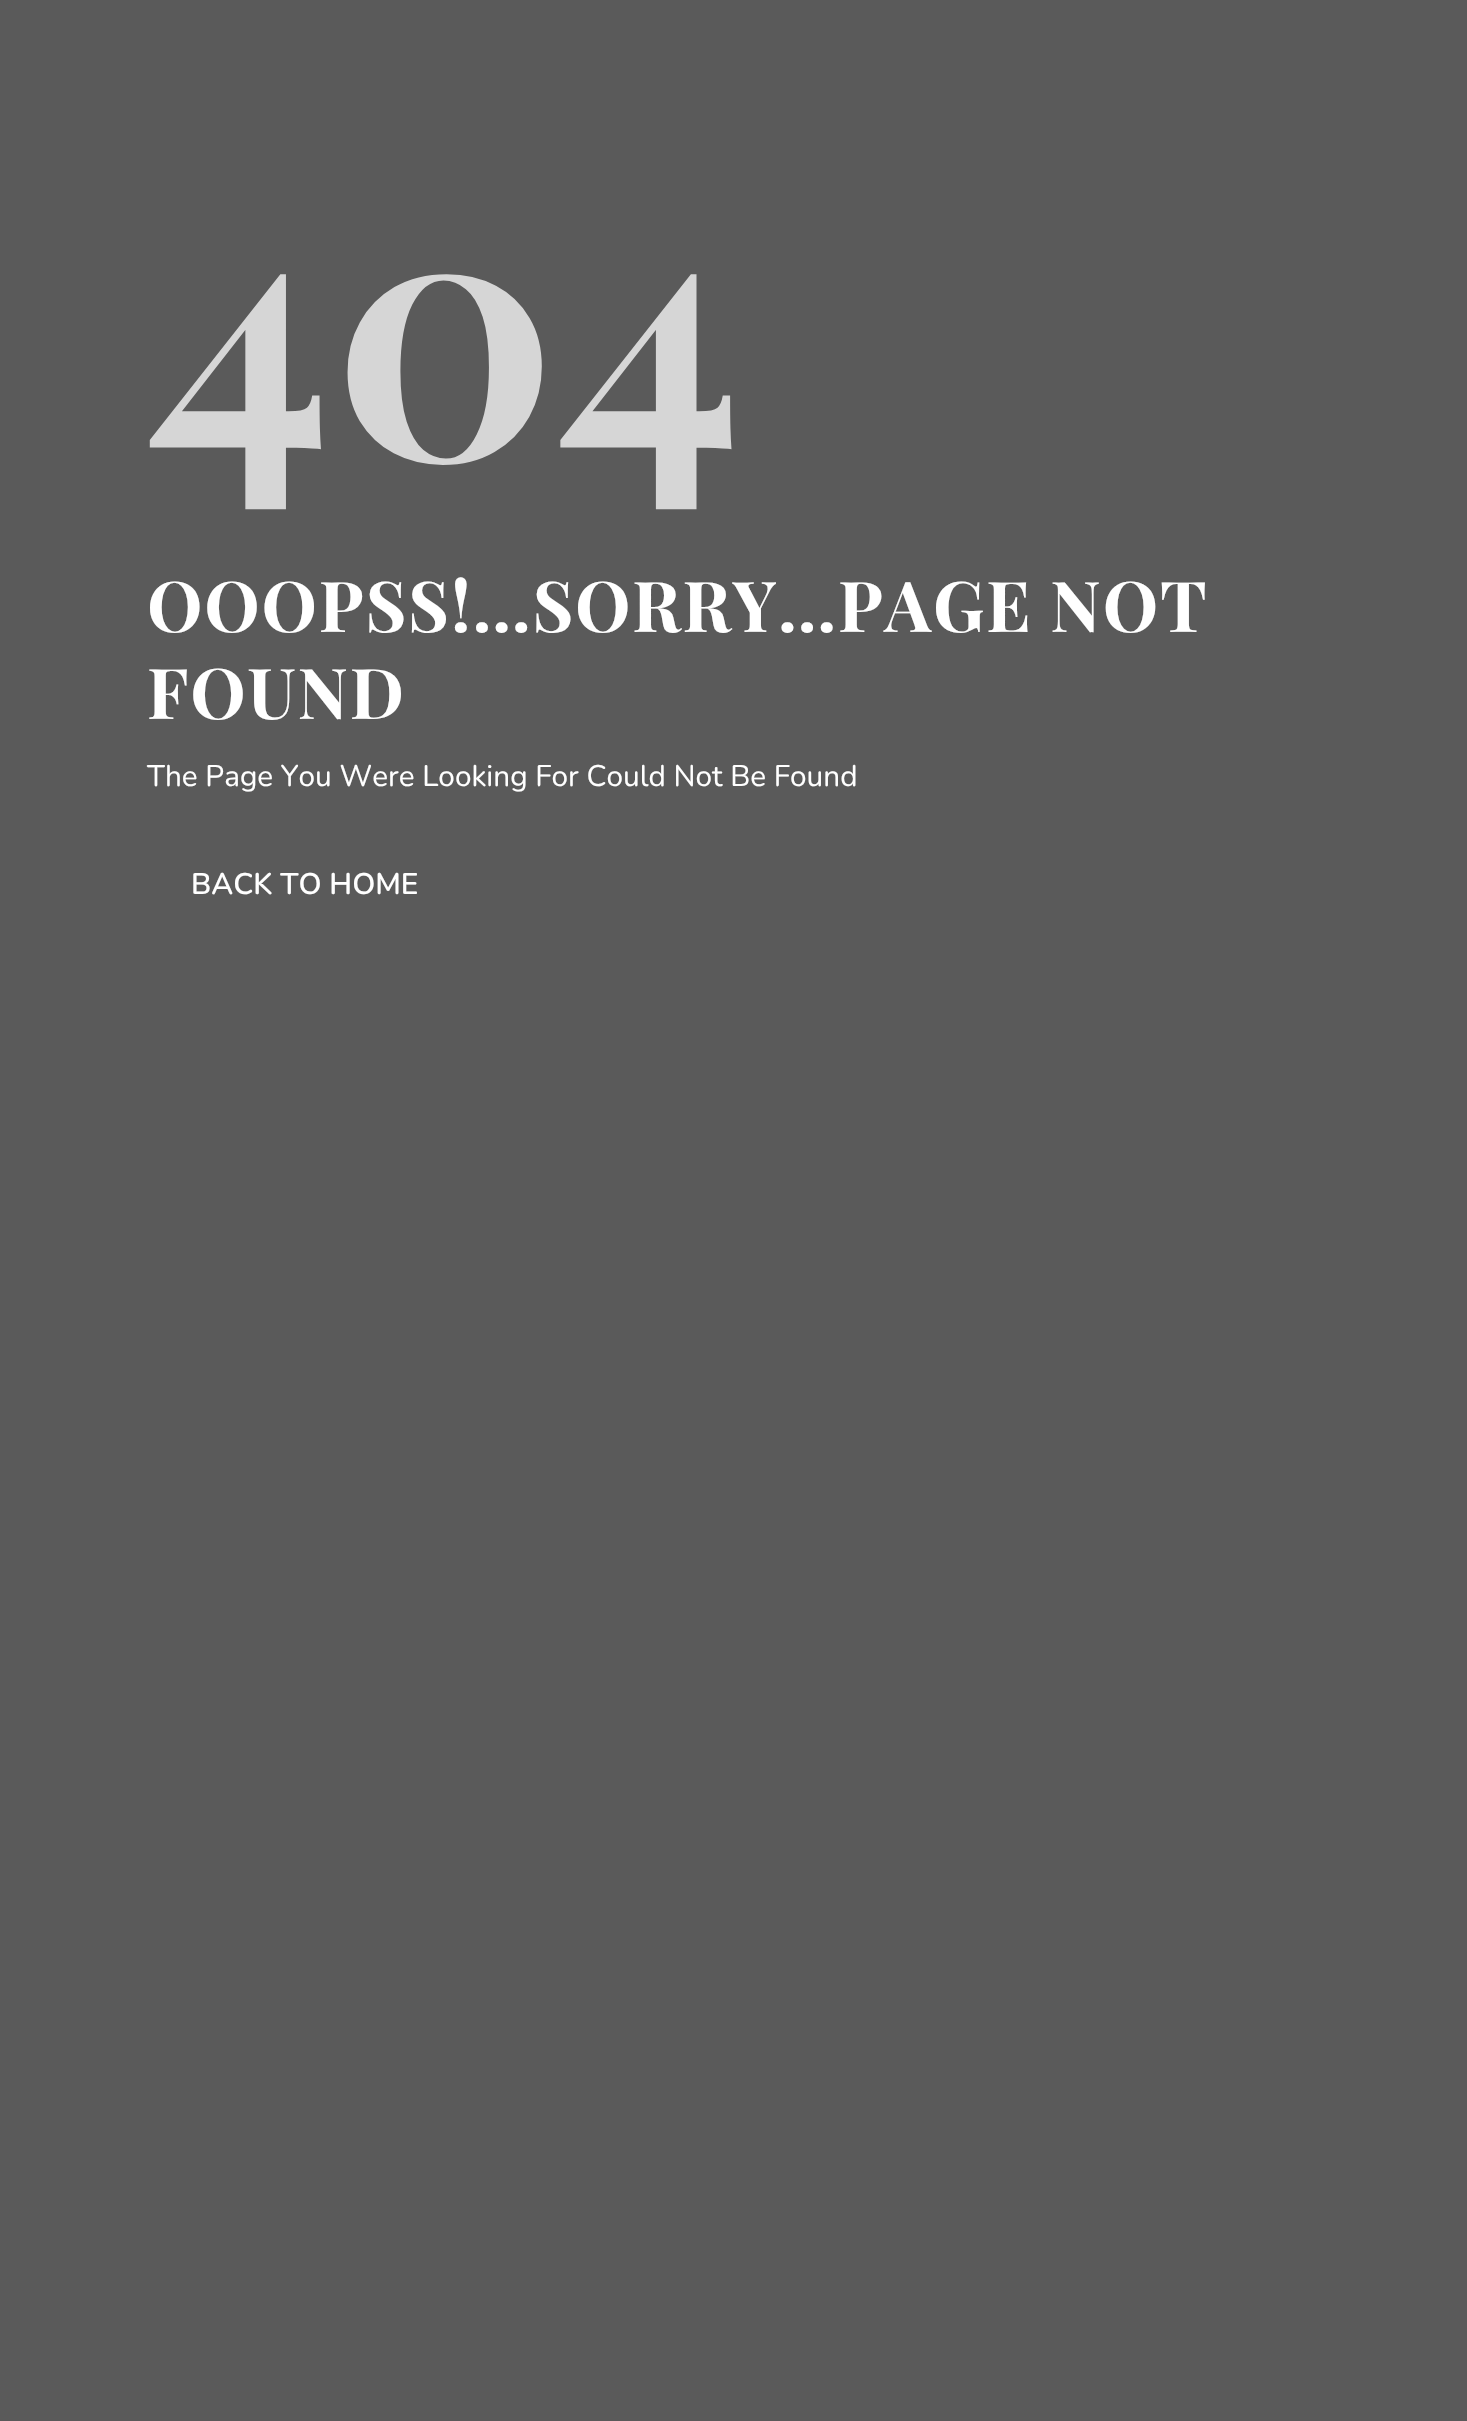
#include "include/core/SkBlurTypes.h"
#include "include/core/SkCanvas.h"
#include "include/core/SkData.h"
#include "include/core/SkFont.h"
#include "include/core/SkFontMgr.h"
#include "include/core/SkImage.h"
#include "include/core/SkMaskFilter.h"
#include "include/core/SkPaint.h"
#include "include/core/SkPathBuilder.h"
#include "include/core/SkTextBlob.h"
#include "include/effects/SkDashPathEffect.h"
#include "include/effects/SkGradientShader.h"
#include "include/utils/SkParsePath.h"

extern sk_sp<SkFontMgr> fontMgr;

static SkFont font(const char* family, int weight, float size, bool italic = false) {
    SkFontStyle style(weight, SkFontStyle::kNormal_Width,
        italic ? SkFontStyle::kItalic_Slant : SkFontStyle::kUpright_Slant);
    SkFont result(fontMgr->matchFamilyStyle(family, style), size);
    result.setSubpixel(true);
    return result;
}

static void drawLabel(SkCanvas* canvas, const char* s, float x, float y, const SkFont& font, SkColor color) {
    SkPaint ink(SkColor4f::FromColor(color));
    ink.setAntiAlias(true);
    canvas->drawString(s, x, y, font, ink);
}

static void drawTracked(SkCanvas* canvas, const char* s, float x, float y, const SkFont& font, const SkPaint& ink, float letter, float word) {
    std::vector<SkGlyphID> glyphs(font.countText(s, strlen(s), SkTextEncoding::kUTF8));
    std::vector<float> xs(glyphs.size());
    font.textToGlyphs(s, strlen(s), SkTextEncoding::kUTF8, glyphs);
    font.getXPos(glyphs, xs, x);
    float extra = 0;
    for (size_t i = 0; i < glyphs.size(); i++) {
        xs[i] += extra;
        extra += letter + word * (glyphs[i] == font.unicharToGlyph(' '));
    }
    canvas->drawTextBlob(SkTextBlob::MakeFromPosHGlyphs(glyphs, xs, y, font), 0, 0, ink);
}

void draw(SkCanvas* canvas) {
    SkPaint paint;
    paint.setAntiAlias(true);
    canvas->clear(0xFF5A5A5A);
    SkFont font1 = font("Playfair Display", 700, 350);
    drawLabel(canvas, "404", 147, 460, font1, 0xFFD6D6D6);
    SkFont font2 = font("Playfair Display", 700, 70);
    paint.setColor(0xFFFFFFFF);
    drawTracked(canvas, "OOOPSS!…SORRY…PAGE NOT", 147, 632, font2, paint, 1.75f, 0);
    drawTracked(canvas, "FOUND", 147, 719, font2, paint, 1.75f, 0);
    SkFont font3 = font("Nunito", 400, 29.75f);
    drawLabel(canvas, "The Page You Were Looking For Could Not Be Found", 147, 786, font3, 0xFFFFFFFF);
    SkFont font4 = font("Nunito", 600, 29.75f);
    drawLabel(canvas, "BACK TO HOME", 191, 894, font4, 0xFFFFFFFF);
}
